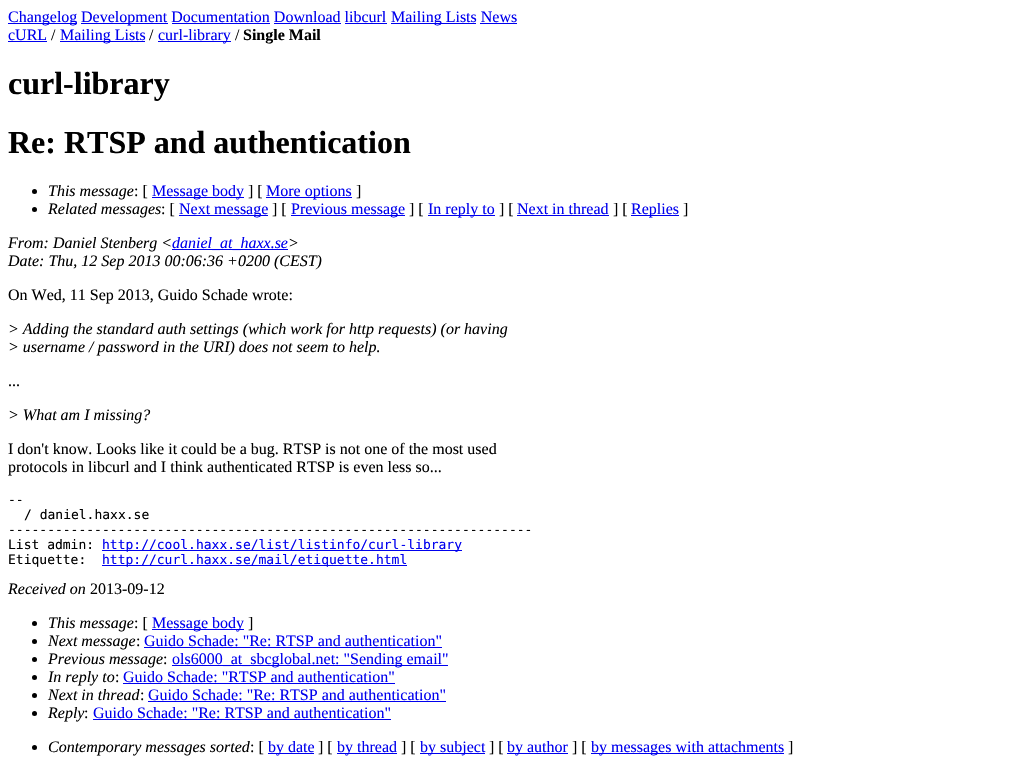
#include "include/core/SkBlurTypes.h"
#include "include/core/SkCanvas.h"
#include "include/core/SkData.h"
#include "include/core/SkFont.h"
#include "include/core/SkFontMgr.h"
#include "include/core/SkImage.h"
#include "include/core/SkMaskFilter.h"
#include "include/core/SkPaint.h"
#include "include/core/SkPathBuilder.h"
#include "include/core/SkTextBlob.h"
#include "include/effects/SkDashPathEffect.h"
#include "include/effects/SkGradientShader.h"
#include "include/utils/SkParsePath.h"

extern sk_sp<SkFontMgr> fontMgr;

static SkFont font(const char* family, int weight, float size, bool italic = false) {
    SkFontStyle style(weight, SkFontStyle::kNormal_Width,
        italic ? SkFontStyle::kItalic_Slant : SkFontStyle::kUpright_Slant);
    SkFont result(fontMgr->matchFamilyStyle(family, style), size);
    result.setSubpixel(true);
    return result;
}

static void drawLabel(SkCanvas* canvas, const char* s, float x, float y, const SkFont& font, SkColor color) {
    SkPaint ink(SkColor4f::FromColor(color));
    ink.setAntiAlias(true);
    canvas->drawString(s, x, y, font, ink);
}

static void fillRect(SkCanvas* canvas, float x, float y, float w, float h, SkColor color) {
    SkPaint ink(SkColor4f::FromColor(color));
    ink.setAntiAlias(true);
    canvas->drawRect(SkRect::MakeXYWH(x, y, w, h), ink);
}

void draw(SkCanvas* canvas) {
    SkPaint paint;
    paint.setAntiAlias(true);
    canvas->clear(0xFFFFFFFF);
    fillRect(canvas, 8, 23, 69, 1, 0xFF0000EE);
    SkFont font1 = font("Liberation Serif", 400, 16);
    drawLabel(canvas, "Changelog", 8, 22, font1, 0xFF0000EE);
    fillRect(canvas, 81, 23, 87, 1, 0xFF0000EE);
    drawLabel(canvas, "Development Documentation Download libcurl", 81, 22, font1, 0xFF0000EE);
    fillRect(canvas, 391, 23, 85, 1, 0xFF0000EE);
    drawLabel(canvas, "Mailing Lists News", 391, 22, font1, 0xFF0000EE);
    fillRect(canvas, 172, 23, 98, 1, 0xFF0000EE);
    fillRect(canvas, 274, 23, 67, 1, 0xFF0000EE);
    fillRect(canvas, 345, 23, 42, 1, 0xFF0000EE);
    fillRect(canvas, 480, 23, 37, 1, 0xFF0000EE);
    drawLabel(canvas, "cURL", 8, 40, font1, 0xFF0000EE);
    fillRect(canvas, 8, 41, 39, 1, 0xFF0000EE);
    drawLabel(canvas, "/", 51, 40, font1, 0xFF000000);
    fillRect(canvas, 60, 41, 85, 1, 0xFF0000EE);
    drawLabel(canvas, "Mailing Lists", 60, 40, font1, 0xFF0000EE);
    drawLabel(canvas, "/", 149, 40, font1, 0xFF000000);
    fillRect(canvas, 158, 41, 73, 1, 0xFF0000EE);
    drawLabel(canvas, "curl-library", 158, 40, font1, 0xFF0000EE);
    drawLabel(canvas, "/", 235, 40, font1, 0xFF000000);
    SkFont font2 = font("Liberation Serif", 700, 16);
    drawLabel(canvas, "Single Mail", 243, 40, font2, 0xFF000000);
    SkFont font3 = font("Liberation Serif", 700, 32);
    drawLabel(canvas, "curl-library", 8, 94, font3, 0xFF000000);
    drawLabel(canvas, "Re: RTSP and authentication", 8, 153, font3, 0xFF000000);
    paint.setColor(0xFF000000);
    canvas->drawCircle(34.5f, 191.5f, 2.5f, paint);
    SkFont font4 = font("Liberation Serif", 400, 16, true);
    drawLabel(canvas, "This message", 48, 196, font4, 0xFF000000);
    drawLabel(canvas, ": [", 134, 196, font1, 0xFF000000);
    fillRect(canvas, 152, 197, 92, 1, 0xFF0000EE);
    drawLabel(canvas, "Message body", 152, 196, font1, 0xFF0000EE);
    drawLabel(canvas, "] [", 248, 196, font1, 0xFF000000);
    fillRect(canvas, 266, 197, 86, 1, 0xFF0000EE);
    drawLabel(canvas, "More options", 266, 196, font1, 0xFF0000EE);
    drawLabel(canvas, "]", 356, 196, font1, 0xFF000000);
    canvas->drawCircle(34.5f, 209.5f, 2.5f, paint);
    drawLabel(canvas, "Related messages", 48, 214, font4, 0xFF000000);
    drawLabel(canvas, ": [", 161, 214, font1, 0xFF000000);
    fillRect(canvas, 179, 215, 89, 1, 0xFF0000EE);
    drawLabel(canvas, "Next message", 179, 214, font1, 0xFF0000EE);
    drawLabel(canvas, "] [", 272, 214, font1, 0xFF000000);
    fillRect(canvas, 291, 215, 114, 1, 0xFF0000EE);
    drawLabel(canvas, "Previous message", 291, 214, font1, 0xFF0000EE);
    drawLabel(canvas, "] [", 409, 214, font1, 0xFF000000);
    fillRect(canvas, 428, 215, 67, 1, 0xFF0000EE);
    drawLabel(canvas, "In reply to", 428, 214, font1, 0xFF0000EE);
    drawLabel(canvas, "] [", 499, 214, font1, 0xFF000000);
    drawLabel(canvas, "Next in thread", 517, 214, font1, 0xFF0000EE);
    fillRect(canvas, 517, 215, 92, 1, 0xFF0000EE);
    drawLabel(canvas, "] [", 613, 214, font1, 0xFF000000);
    fillRect(canvas, 631, 215, 48, 1, 0xFF0000EE);
    drawLabel(canvas, "Replies", 631, 214, font1, 0xFF0000EE);
    drawLabel(canvas, "]", 683, 214, font1, 0xFF000000);
    drawLabel(canvas, "From: Daniel Stenberg <", 8, 248, font4, 0xFF000000);
    fillRect(canvas, 172, 249, 116, 1, 0xFF0000EE);
    drawLabel(canvas, "daniel_at_haxx.se", 172, 248, font4, 0xFF0000EE);
    drawLabel(canvas, ">", 288, 248, font4, 0xFF000000);
    drawLabel(canvas, "Date: Thu, 12 Sep 2013 00:06:36 +0200 (CEST)", 8, 266, font4, 0xFF000000);
    drawLabel(canvas, "On Wed, 11 Sep 2013, Guido Schade wrote:", 8, 300, font1, 0xFF000000);
    drawLabel(canvas, "> Adding the standard auth settings (which work for http requests) (or having", 8, 334, font4, 0xFF000000);
    drawLabel(canvas, "> username / password in the URI) does not seem to help.", 8, 352, font4, 0xFF000000);
    drawLabel(canvas, "...", 8, 386, font1, 0xFF000000);
    drawLabel(canvas, "> What am I missing?", 8, 420, font4, 0xFF000000);
    drawLabel(canvas, "I don't know. Looks like it could be a bug. RTSP is not one of the most used", 8, 454, font1, 0xFF000000);
    drawLabel(canvas, "protocols in libcurl and I think authenticated RTSP is even less so...", 8, 472, font1, 0xFF000000);
    SkFont font5 = font("DejaVu Sans Mono", 400, 13);
    drawLabel(canvas, "--", 8, 504, font5, 0xFF000000);
    drawLabel(canvas, "/ daniel.haxx.se", 24, 519, font5, 0xFF000000);
    drawLabel(canvas, "-------------------------------------------------------------------", 8, 534, font5, 0xFF000000);
    drawLabel(canvas, "List admin:", 8, 549, font5, 0xFF000000);
    fillRect(canvas, 102, 550, 360, 1, 0xFF0000EE);
    drawLabel(canvas, "http://cool.haxx.se/list/listinfo/curl-library", 102, 549, font5, 0xFF0000EE);
    drawLabel(canvas, "Etiquette:", 8, 564, font5, 0xFF000000);
    fillRect(canvas, 102, 565, 305, 1, 0xFF0000EE);
    drawLabel(canvas, "http://curl.haxx.se/mail/etiquette.html", 102, 564, font5, 0xFF0000EE);
    drawLabel(canvas, "Received on", 8, 594, font4, 0xFF000000);
    drawLabel(canvas, "2013-09-12", 90, 594, font1, 0xFF000000);
    canvas->drawCircle(34.5f, 623.5f, 2.5f, paint);
    drawLabel(canvas, "This message", 48, 628, font4, 0xFF000000);
    drawLabel(canvas, ": [", 134, 628, font1, 0xFF000000);
    fillRect(canvas, 152, 629, 92, 1, 0xFF0000EE);
    drawLabel(canvas, "Message body", 152, 628, font1, 0xFF0000EE);
    drawLabel(canvas, "]", 248, 628, font1, 0xFF000000);
    canvas->drawCircle(34.5f, 641.5f, 2.5f, paint);
    drawLabel(canvas, "Next message", 48, 646, font4, 0xFF000000);
    drawLabel(canvas, ":", 136, 646, font1, 0xFF000000);
    drawLabel(canvas, "Guido Schade: \"Re: RTSP and authentication\"", 144, 646, font1, 0xFF0000EE);
    fillRect(canvas, 144, 647, 298, 1, 0xFF0000EE);
    canvas->drawCircle(34.5f, 659.5f, 2.5f, paint);
    drawLabel(canvas, "Previous message", 48, 664, font4, 0xFF000000);
    drawLabel(canvas, ":", 163, 664, font1, 0xFF000000);
    fillRect(canvas, 172, 665, 276, 1, 0xFF0000EE);
    drawLabel(canvas, "ols6000_at_sbcglobal.net: \"Sending email\"", 172, 664, font1, 0xFF0000EE);
    canvas->drawCircle(34.5f, 677.5f, 2.5f, paint);
    drawLabel(canvas, "In reply to", 48, 682, font4, 0xFF000000);
    drawLabel(canvas, ":", 115, 682, font1, 0xFF000000);
    drawLabel(canvas, "Guido Schade: \"RTSP and authentication\"", 123, 682, font1, 0xFF0000EE);
    fillRect(canvas, 123, 683, 272, 1, 0xFF0000EE);
    canvas->drawCircle(34.5f, 695.5f, 2.5f, paint);
    drawLabel(canvas, "Next in thread", 48, 700, font4, 0xFF000000);
    drawLabel(canvas, ":", 140, 700, font1, 0xFF000000);
    drawLabel(canvas, "Guido Schade: \"Re: RTSP and authentication\"", 148, 700, font1, 0xFF0000EE);
    fillRect(canvas, 148, 701, 298, 1, 0xFF0000EE);
    canvas->drawCircle(34.5f, 713.5f, 2.5f, paint);
    drawLabel(canvas, "Reply", 48, 718, font4, 0xFF000000);
    drawLabel(canvas, ":", 84, 718, font1, 0xFF000000);
    drawLabel(canvas, "Guido Schade: \"Re: RTSP and authentication\"", 93, 718, font1, 0xFF0000EE);
    fillRect(canvas, 93, 719, 298, 1, 0xFF0000EE);
    canvas->drawCircle(34.5f, 747.5f, 2.5f, paint);
    drawLabel(canvas, "Contemporary messages sorted", 48, 752, font4, 0xFF000000);
    drawLabel(canvas, ": [", 250, 752, font1, 0xFF000000);
    fillRect(canvas, 268, 753, 46, 1, 0xFF0000EE);
    drawLabel(canvas, "by date", 268, 752, font1, 0xFF0000EE);
    drawLabel(canvas, "] [", 318, 752, font1, 0xFF000000);
    fillRect(canvas, 337, 753, 60, 1, 0xFF0000EE);
    drawLabel(canvas, "by thread", 337, 752, font1, 0xFF0000EE);
    drawLabel(canvas, "] [", 401, 752, font1, 0xFF000000);
    fillRect(canvas, 420, 753, 65, 1, 0xFF0000EE);
    drawLabel(canvas, "by subject", 420, 752, font1, 0xFF0000EE);
    drawLabel(canvas, "] [", 489, 752, font1, 0xFF000000);
    fillRect(canvas, 507, 753, 61, 1, 0xFF0000EE);
    drawLabel(canvas, "by author", 507, 752, font1, 0xFF0000EE);
    drawLabel(canvas, "] [", 572, 752, font1, 0xFF000000);
    fillRect(canvas, 591, 753, 193, 1, 0xFF0000EE);
    drawLabel(canvas, "by messages with attachments", 591, 752, font1, 0xFF0000EE);
    drawLabel(canvas, "]", 788, 752, font1, 0xFF000000);
}
